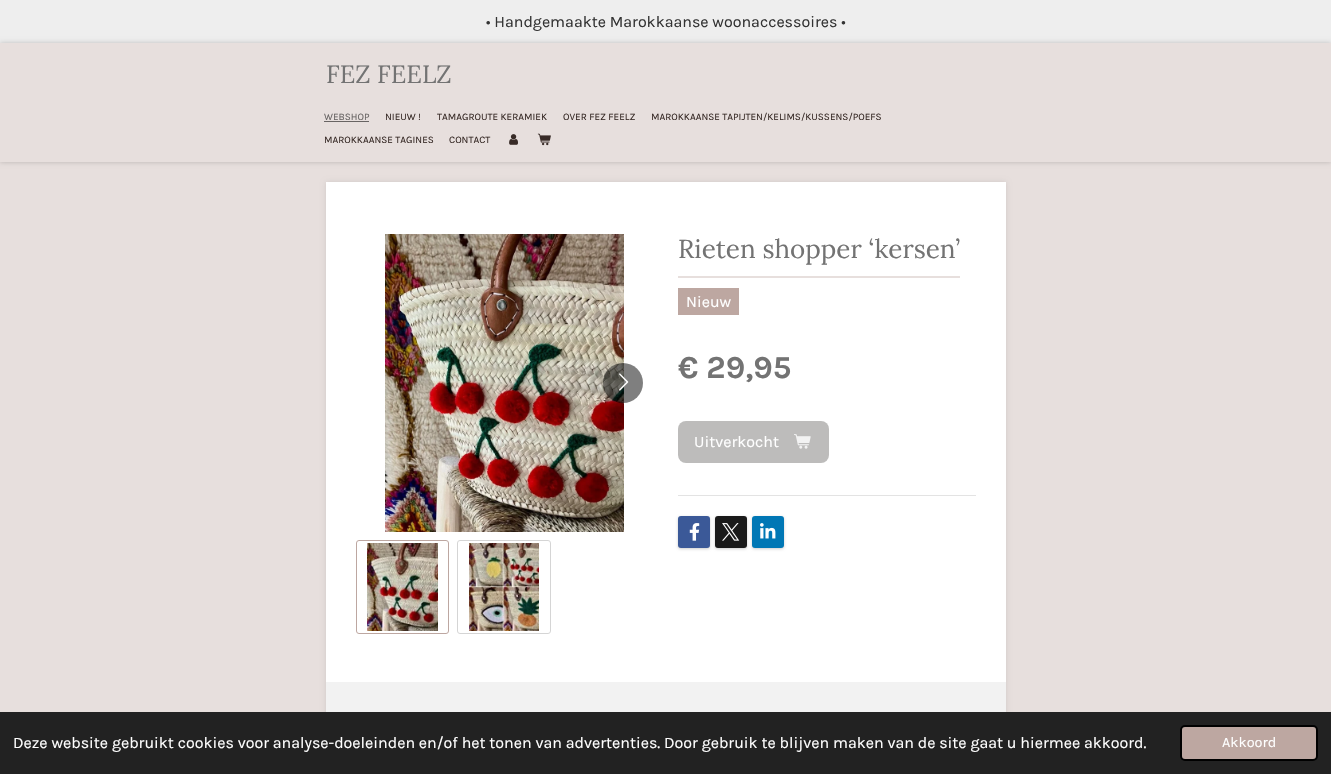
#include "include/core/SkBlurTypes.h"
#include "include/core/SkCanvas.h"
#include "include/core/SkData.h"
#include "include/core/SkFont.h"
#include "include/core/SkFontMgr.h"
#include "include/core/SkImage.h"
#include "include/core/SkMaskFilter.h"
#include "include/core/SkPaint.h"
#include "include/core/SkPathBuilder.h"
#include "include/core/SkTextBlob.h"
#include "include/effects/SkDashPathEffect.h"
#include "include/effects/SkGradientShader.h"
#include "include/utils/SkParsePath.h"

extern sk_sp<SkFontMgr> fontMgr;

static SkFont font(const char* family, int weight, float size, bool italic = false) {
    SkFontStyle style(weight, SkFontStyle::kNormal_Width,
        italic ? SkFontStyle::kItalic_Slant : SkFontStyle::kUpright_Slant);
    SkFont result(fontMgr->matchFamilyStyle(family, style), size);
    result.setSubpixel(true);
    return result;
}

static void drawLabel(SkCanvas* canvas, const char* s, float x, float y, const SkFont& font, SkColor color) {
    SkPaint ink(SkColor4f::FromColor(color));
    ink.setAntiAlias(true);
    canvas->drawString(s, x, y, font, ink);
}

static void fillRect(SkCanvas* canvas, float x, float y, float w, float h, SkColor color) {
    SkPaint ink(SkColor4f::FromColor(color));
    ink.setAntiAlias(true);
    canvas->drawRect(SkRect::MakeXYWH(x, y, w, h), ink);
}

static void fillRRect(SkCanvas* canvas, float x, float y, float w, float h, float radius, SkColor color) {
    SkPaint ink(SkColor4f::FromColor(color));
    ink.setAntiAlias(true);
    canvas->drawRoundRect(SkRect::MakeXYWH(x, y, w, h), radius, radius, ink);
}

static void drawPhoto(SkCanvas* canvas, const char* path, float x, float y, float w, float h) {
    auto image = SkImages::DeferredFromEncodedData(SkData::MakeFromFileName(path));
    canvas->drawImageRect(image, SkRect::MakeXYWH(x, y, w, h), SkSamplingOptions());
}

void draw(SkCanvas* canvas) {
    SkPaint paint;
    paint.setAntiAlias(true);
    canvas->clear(0xFFE7DFDD);
    fillRect(canvas, 0, 0, 1331, 43, 0xFFEEEEEE);
    SkFont font1 = font("Karla", 400, 16);
    drawLabel(canvas, "• Handgemaakte Marokkaanse woonaccessoires •", 486, 27, font1, 0xFF333333);
    paint.setColor(0x33000000);
    paint.setMaskFilter(SkMaskFilter::MakeBlur(kNormal_SkBlurStyle, 2.5f));
    canvas->drawRect(SkRect::MakeXYWH(0, 43, 1331, 119), paint);
    paint.setMaskFilter(nullptr);
    fillRect(canvas, 0, 43, 1331, 119, 0xFFE7DFDD);
    SkFont font2 = font("Lora", 400, 25);
    drawLabel(canvas, "FEZ FEELZ", 326, 83, font2, 0xFF737373);
    SkFont font3 = font("Karla", 400, 10);
    drawLabel(canvas, "WEBSHOP", 324, 120, font3, 0xFF686463);
    fillRect(canvas, 324, 121, 45, 1, 0xFF686463);
    drawLabel(canvas, "NIEUW !", 385, 120, font3, 0xFF382B27);
    drawLabel(canvas, "TAMAGROUTE KERAMIEK", 437, 120, font3, 0xFF382B27);
    drawLabel(canvas, "OVER FEZ FEELZ", 563, 120, font3, 0xFF382B27);
    drawLabel(canvas, "MAROKKAANSE TAPIJTEN/KELIMS/KUSSENS/POEFS", 651, 120, font3, 0xFF382B27);
    drawLabel(canvas, "MAROKKAANSE TAGINES", 324, 143, font3, 0xFF382B27);
    drawLabel(canvas, "CONTACT", 449, 143, font3, 0xFF382B27);
    drawPhoto(canvas, "assets/img1.png", 509, 134, 9, 11);
    drawPhoto(canvas, "assets/img2.png", 537, 133, 14, 13);
    paint.setColor(0x1A000000);
    paint.setMaskFilter(SkMaskFilter::MakeBlur(kNormal_SkBlurStyle, 2.5f));
    canvas->drawRect(SkRect::MakeXYWH(326, 182, 680, 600), paint);
    paint.setMaskFilter(nullptr);
    fillRect(canvas, 326, 182, 680, 500, 0xFFFFFFFF);
    drawPhoto(canvas, "assets/img3.png", 385, 234, 239, 298);
    paint.setColor(0x80000000);
    canvas->drawCircle(623, 383, 20, paint);
    drawPhoto(canvas, "assets/img4.png", 619, 373, 10, 18);
    paint.setStroke(true);
    paint.setStrokeWidth(1);
    paint.setColor(0xFFBDA7A1);
    canvas->drawRoundRect(SkRect::MakeXYWH(356.5f, 540.5f, 92, 93), 2.5f, 2.5f, paint);
    drawPhoto(canvas, "assets/img5.png", 367, 543, 71, 88);
    paint.setColor(0xFFD5D5D5);
    canvas->drawRoundRect(SkRect::MakeXYWH(457.5f, 540.5f, 93, 93), 2.5f, 2.5f, paint);
    drawPhoto(canvas, "assets/img6.png", 469, 543, 70, 88);
    fillRect(canvas, 678, 276, 282, 2, 0xFFE7DFDD);
    SkFont font4 = font("Lora", 400, 26);
    drawLabel(canvas, "Rieten shopper ‘kersen’", 678, 258, font4, 0xFF737373);
    fillRect(canvas, 678, 288, 61, 27, 0xFFBDA7A1);
    drawLabel(canvas, "Nieuw", 686, 307, font1, 0xFFFFFFFF);
    SkFont font5 = font("Karla", 700, 32);
    drawLabel(canvas, "€ 29,95", 678, 378, font5, 0xFF737373);
    fillRRect(canvas, 678, 421, 151, 42, 8, 0xFFBDBCBB);
    drawLabel(canvas, "Uitverkocht", 694, 447, font1, 0xFFFFFFFF);
    drawPhoto(canvas, "assets/img7.png", 794, 434, 17, 15);
    fillRect(canvas, 678, 495, 298, 1, 0xFFE3E3E3);
    paint.setStroke(false);
    paint.setColor(0x33000000);
    paint.setMaskFilter(SkMaskFilter::MakeBlur(kNormal_SkBlurStyle, 1.5f));
    canvas->drawRoundRect(SkRect::MakeXYWH(678, 517, 32, 32), 3, 3, paint);
    paint.setMaskFilter(nullptr);
    fillRRect(canvas, 678, 516, 32, 32, 3, 0xFF3B5998);
    drawPhoto(canvas, "assets/img8.png", 689, 523, 11, 18);
    paint.setMaskFilter(SkMaskFilter::MakeBlur(kNormal_SkBlurStyle, 1.5f));
    canvas->drawRoundRect(SkRect::MakeXYWH(715, 517, 32, 32), 3, 3, paint);
    paint.setMaskFilter(nullptr);
    fillRRect(canvas, 715, 516, 32, 32, 3, 0xFF1A1A1A);
    drawPhoto(canvas, "assets/img9.png", 722, 523, 18, 18);
    paint.setMaskFilter(SkMaskFilter::MakeBlur(kNormal_SkBlurStyle, 1.5f));
    canvas->drawRoundRect(SkRect::MakeXYWH(752, 517, 32, 32), 3, 3, paint);
    paint.setMaskFilter(nullptr);
    fillRRect(canvas, 752, 516, 32, 32, 3, 0xFF0077B5);
    drawPhoto(canvas, "assets/img10.png", 760, 523, 16, 16);
    fillRect(canvas, 326, 682, 680, 30, 0xFFF2F2F2);
    fillRect(canvas, 0, 712, 1331, 62, 0xFF222222);
    drawLabel(canvas, "Deze website gebruikt cookies voor analyse-doeleinden en/of het tonen van advertenties. Door gebruik te blijven maken van de site gaat u hiermee akkoord.", 13, 748, font1, 0xFFFFFFFF);
    paint.setColor(0xFFBDA7A1);
    canvas->drawRoundRect(SkRect::MakeXYWH(1181, 726, 136, 34), 4, 4, paint);
    paint.setStroke(true);
    paint.setStrokeWidth(2);
    paint.setColor(0xFF000000);
    canvas->drawRoundRect(SkRect::MakeXYWH(1181, 726, 136, 34), 4, 4, paint);
    SkFont font6 = font("Karla", 400, 14.5f);
    drawLabel(canvas, "Akkoord", 1222, 747, font6, 0xFFFFFFFF);
}
